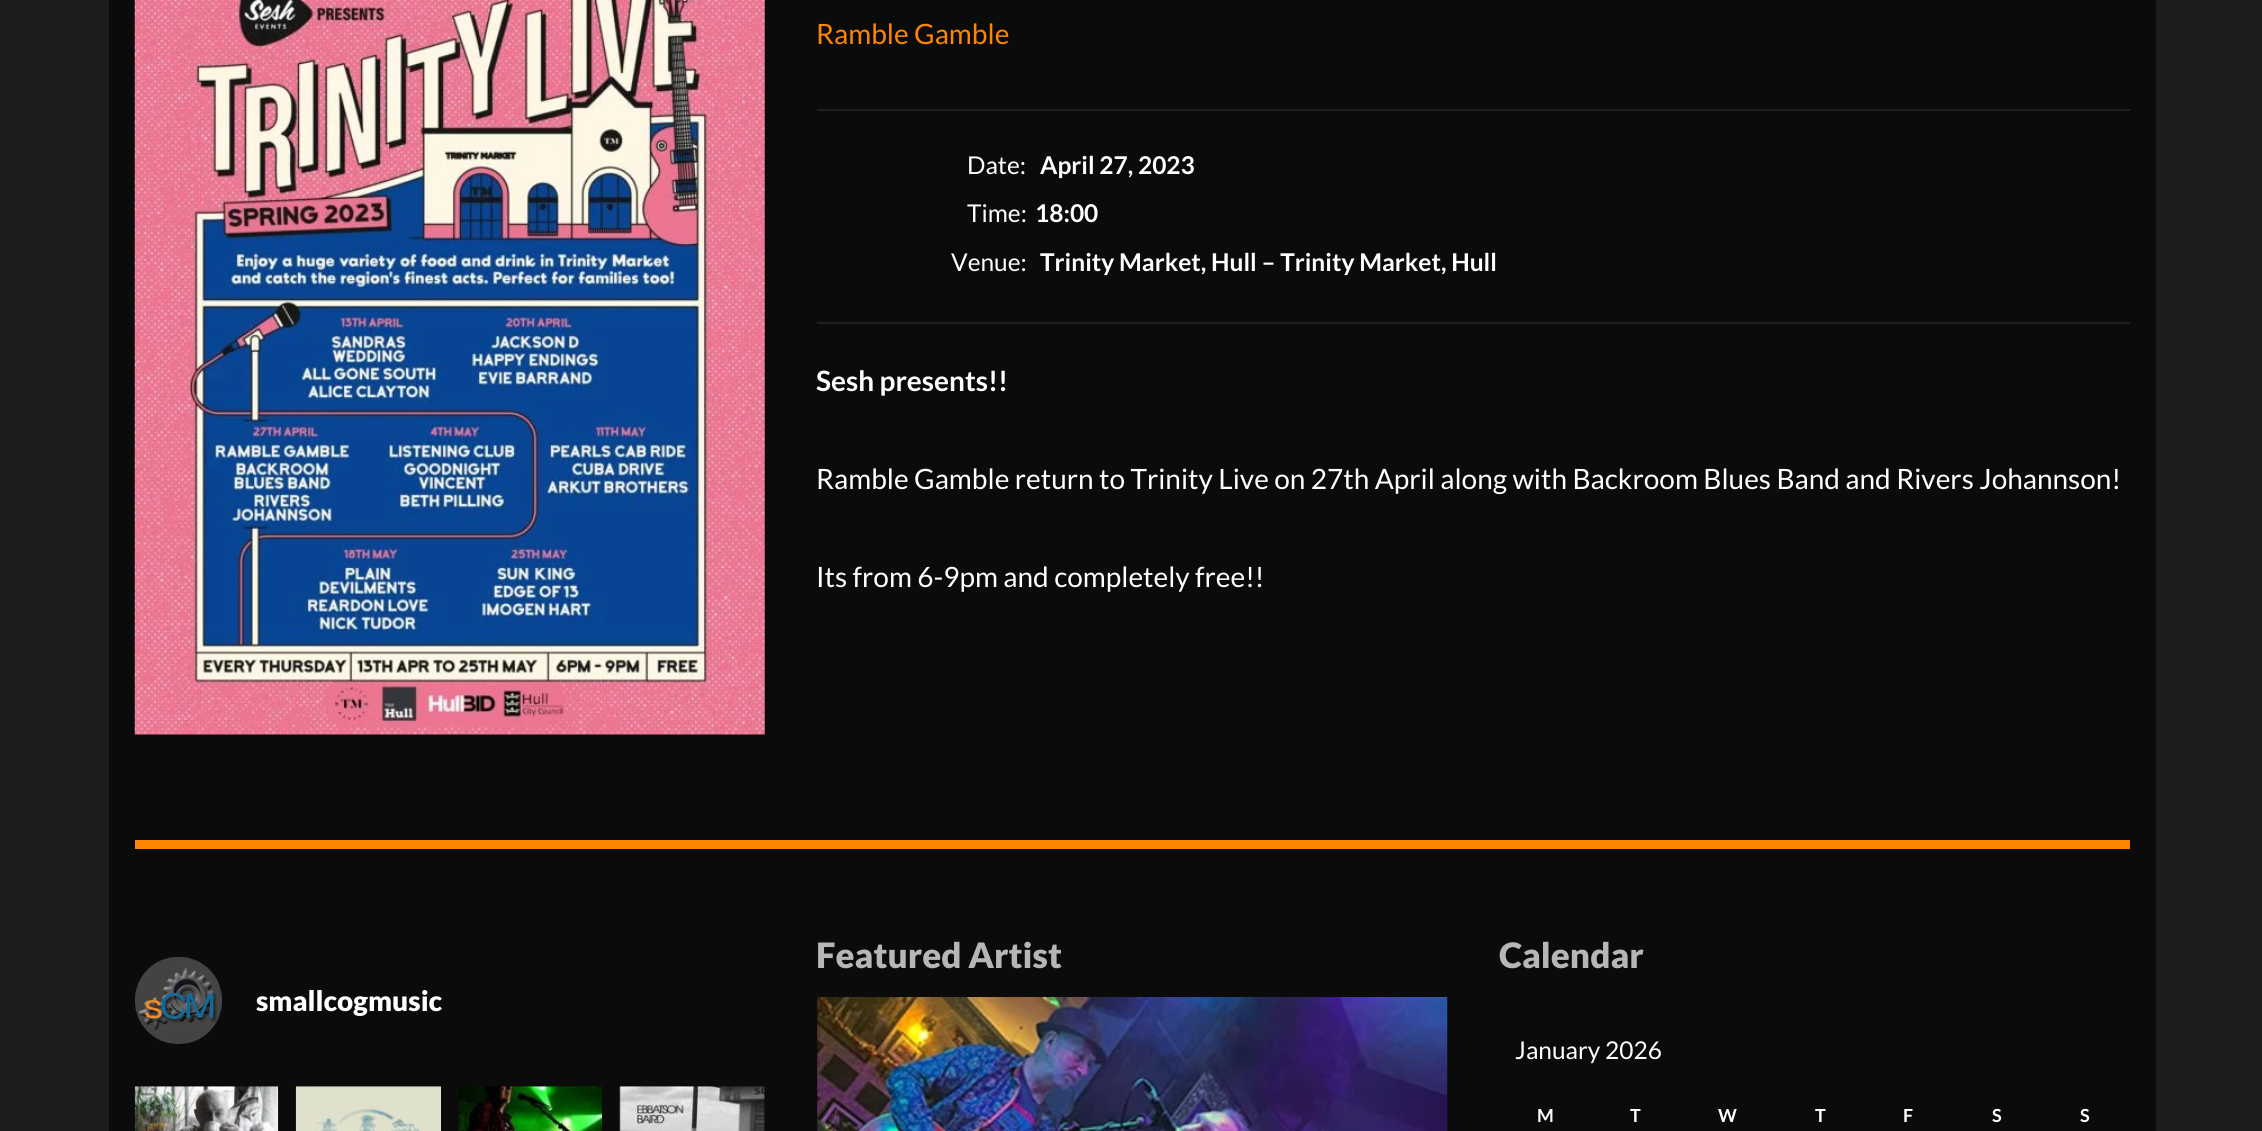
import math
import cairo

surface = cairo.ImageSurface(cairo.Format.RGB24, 2262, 1131)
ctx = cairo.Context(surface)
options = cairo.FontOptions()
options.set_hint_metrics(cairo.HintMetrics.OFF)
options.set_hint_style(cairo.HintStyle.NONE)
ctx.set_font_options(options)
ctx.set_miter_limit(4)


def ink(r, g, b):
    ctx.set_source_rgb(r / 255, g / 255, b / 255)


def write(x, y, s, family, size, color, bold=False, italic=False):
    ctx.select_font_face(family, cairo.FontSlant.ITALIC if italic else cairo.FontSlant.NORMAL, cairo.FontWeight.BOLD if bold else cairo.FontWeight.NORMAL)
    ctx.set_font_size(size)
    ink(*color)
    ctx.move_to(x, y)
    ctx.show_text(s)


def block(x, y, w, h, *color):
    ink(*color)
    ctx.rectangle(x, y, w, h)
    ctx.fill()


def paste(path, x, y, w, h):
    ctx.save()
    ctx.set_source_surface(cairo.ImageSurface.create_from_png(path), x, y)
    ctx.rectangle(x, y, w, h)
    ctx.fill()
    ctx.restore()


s1 = dict(family="Lato", size=28, color=(254, 133, 0))
s2 = dict(family="Lato", size=24.5, color=(255, 255, 255))
s3 = dict(family="Lato", size=24.5, color=(255, 255, 255), bold=True)
s4 = dict(family="Lato", size=28, color=(255, 255, 255), bold=True)
s5 = dict(family="Lato", size=28, color=(255, 255, 255))
s6 = dict(family="Lato Black", size=28, color=(255, 255, 255))
s7 = dict(family="Lato Black", size=35, color=(182, 182, 182))
s8 = dict(family="Lato", size=18, color=(255, 255, 255), bold=True)

ink(29, 29, 29)
ctx.paint()
block(109, 0, 2047, 1131, 11, 11, 11)
paste("pic1.png", 134, 0, 631, 735)
write(816, 44, "Ramble Gamble", **s1)
block(817, 109, 1313, 2, 32, 32, 32)
block(817, 322, 1313, 2, 32, 32, 32)
write(967, 174, "Date:", **s2)
write(1040, 174, "April 27, 2023", **s3)
write(967, 222, "Time:", **s2)
write(1035, 222, "18:00", **s3)
write(951, 271, "Venue:", **s2)
write(1040, 271, "Trinity Market, Hull – Trinity Market, Hull", **s3)
write(816, 391, "Sesh presents!!", **s4)
write(816, 489, "Ramble Gamble return to Trinity Live on 27th April along with Backroom Blues Band and Rivers Johannson!", **s5)
write(816, 587, "Its from 6-9pm and completely free!!", **s5)
block(135, 840, 1995, 9, 254, 133, 0)
paste("pic2.png", 135, 957, 87, 87)
write(256, 1011, "smallcogmusic", **s6)
paste("pic3.png", 134, 1086, 145, 45)
paste("pic4.png", 295, 1086, 146, 45)
paste("pic5.png", 458, 1086, 144, 45)
paste("pic6.png", 619, 1086, 146, 45)
write(816, 968, "Featured Artist", **s7)
paste("pic7.png", 817, 997, 631, 134)
write(1499, 968, "Calendar", **s7)
write(1515, 1059, "January 2026", **s2)
write(1537, 1122, "M", **s8)
write(1630, 1122, "T", **s8)
write(1718, 1122, "W", **s8)
write(1815, 1122, "T", **s8)
write(1903, 1122, "F", **s8)
write(1992, 1122, "S", **s8)
write(2080, 1122, "S", **s8)
surface.write_to_png("screenshot.png")
